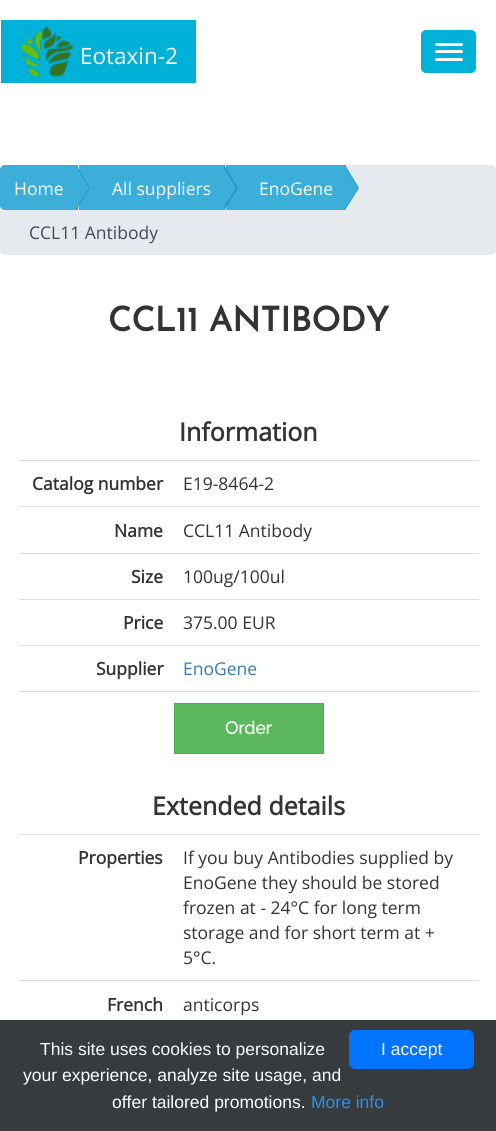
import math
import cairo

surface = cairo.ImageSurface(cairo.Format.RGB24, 496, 1131)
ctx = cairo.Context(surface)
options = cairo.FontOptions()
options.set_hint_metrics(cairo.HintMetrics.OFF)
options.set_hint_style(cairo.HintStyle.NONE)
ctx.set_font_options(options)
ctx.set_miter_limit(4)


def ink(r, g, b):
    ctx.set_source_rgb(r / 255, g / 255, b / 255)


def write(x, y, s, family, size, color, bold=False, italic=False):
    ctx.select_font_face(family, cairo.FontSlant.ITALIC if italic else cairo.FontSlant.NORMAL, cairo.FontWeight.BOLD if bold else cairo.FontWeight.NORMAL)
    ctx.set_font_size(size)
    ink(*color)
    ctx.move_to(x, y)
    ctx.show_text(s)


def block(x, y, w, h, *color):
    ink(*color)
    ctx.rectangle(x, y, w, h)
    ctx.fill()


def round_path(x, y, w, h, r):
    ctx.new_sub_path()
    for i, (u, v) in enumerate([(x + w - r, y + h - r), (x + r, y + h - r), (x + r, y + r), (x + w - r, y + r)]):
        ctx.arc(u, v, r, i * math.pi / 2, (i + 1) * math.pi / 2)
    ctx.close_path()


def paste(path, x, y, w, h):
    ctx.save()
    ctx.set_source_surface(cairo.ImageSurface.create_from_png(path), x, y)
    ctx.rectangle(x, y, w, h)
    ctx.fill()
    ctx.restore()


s1 = dict(family="Open Sans", size=22.5, color=(255, 255, 255))
s2 = dict(family="Open Sans", size=17.5, color=(255, 255, 255))
s3 = dict(family="Open Sans", size=17.5, color=(67, 74, 84))
s4 = dict(family="Josefin Sans", size=33.75, color=(51, 51, 51), bold=True)
s5 = dict(family="Open Sans", size=25, color=(51, 51, 51), bold=True)
s6 = dict(family="Open Sans", size=17.5, color=(51, 51, 51), bold=True)
s7 = dict(family="Open Sans", size=17.5, color=(51, 51, 51))
s8 = dict(family="Open Sans", size=17.5, color=(51, 122, 183))
s9 = dict(family="Raleway", size=17.5, color=(255, 255, 255), bold=True)
s10 = dict(family="Liberation Sans", size=17.5, color=(255, 255, 255))
s11 = dict(family="Liberation Sans", size=17.5, color=(41, 144, 234))

ink(255, 255, 255)
ctx.paint()
block(1, 20, 195, 63, 1, 177, 215)
paste("pic1.png", 20, 26, 54, 51)
write(80, 64, "Eotaxin-2", **s1)
ink(1, 177, 215)
round_path(421, 30, 55, 43, 5)
ctx.fill()
ink(255, 255, 255)
round_path(435, 43, 28, 3, 1.5)
ctx.fill()
round_path(435, 50, 28, 3, 1.5)
ctx.fill()
round_path(435, 58, 28, 3, 1.5)
ctx.fill()
ink(230, 233, 237)
round_path(0, 165, 496, 90, 5)
ctx.fill()
ink(59, 175, 218)
ctx.new_path()
ctx.move_to(5, 165.5)
ctx.line_to(77.5, 165.5)
ctx.line_to(77.5, 209.5)
ctx.line_to(5, 209.5)
ctx.curve_to(2.5, 209.5, 0.5, 207.5, 0.5, 205)
ctx.line_to(0.5, 170)
ctx.curve_to(0.5, 167.5, 2.5, 165.5, 5, 165.5)
ctx.close_path()
ctx.fill_preserve()
ctx.set_line_width(1)
ctx.stroke()
block(79, 165, 146, 45, 59, 175, 218)
ink(36, 148, 190)
ctx.new_path()
ctx.move_to(76, 210)
ctx.line_to(76, 165)
ctx.line_to(90, 188)
ctx.close_path()
ctx.fill()
ink(59, 175, 218)
ctx.new_path()
ctx.move_to(75, 210)
ctx.line_to(75, 165)
ctx.line_to(89, 188)
ctx.close_path()
ctx.fill()
write(14, 195, "Home", **s2)
block(226, 165, 120, 45, 59, 175, 218)
ink(36, 148, 190)
ctx.new_path()
ctx.move_to(224, 210)
ctx.line_to(224, 165)
ctx.line_to(238, 188)
ctx.close_path()
ctx.fill()
ink(59, 175, 218)
ctx.new_path()
ctx.move_to(222, 210)
ctx.line_to(222, 165)
ctx.line_to(236, 188)
ctx.close_path()
ctx.fill()
write(112, 195, "All suppliers", **s2)
ink(36, 148, 190)
ctx.new_path()
ctx.move_to(345, 210)
ctx.line_to(345, 165)
ctx.line_to(359, 188)
ctx.close_path()
ctx.fill()
ink(59, 175, 218)
ctx.new_path()
ctx.move_to(344, 210)
ctx.line_to(344, 165)
ctx.line_to(358, 188)
ctx.close_path()
ctx.fill()
write(259, 195, "EnoGene", **s2)
write(29, 239, "CCL11 Antibody", **s3)
write(108, 331, "CCL11 ANTIBODY", **s4)
write(179, 441, "Information", **s5)
write(32, 490, "Catalog number", **s6)
block(19, 460, 460, 1, 221, 221, 221)
write(183, 490, "E19-8464-2", **s7)
write(114, 537, "Name", **s6)
block(19, 506, 460, 1, 221, 221, 221)
write(183, 537, "CCL11 Antibody", **s7)
write(131, 583, "Size", **s6)
block(19, 553, 460, 1, 221, 221, 221)
write(183, 583, "100ug/100ul", **s7)
write(123, 629, "Price", **s6)
block(19, 599, 460, 1, 221, 221, 221)
write(183, 629, "375.00 EUR", **s7)
write(96, 675, "Supplier", **s6)
block(19, 645, 460, 1, 221, 221, 221)
write(183, 675, "EnoGene", **s8)
block(19, 691, 460, 1, 221, 221, 221)
ink(92, 184, 92)
ctx.rectangle(174.5, 703.5, 149, 50)
ctx.fill_preserve()
ink(76, 174, 76)
ctx.stroke()
write(225, 734, "Order", **s9)
write(152, 815, "Extended details", **s5)
write(78, 864, "Properties", **s6)
block(19, 834, 460, 1, 221, 221, 221)
write(183, 864, "If you buy Antibodies supplied by", **s7)
write(183, 889, "EnoGene they should be stored", **s7)
write(183, 914, "frozen at - 24°C for long term", **s7)
write(183, 939, "storage and for short term at +", **s7)
write(183, 964, "5°C.", **s7)
write(107, 1011, "French", **s6)
block(19, 980, 460, 1, 221, 221, 221)
write(183, 1011, "anticorps", **s7)
block(0, 1020, 496, 111, 54, 59, 62)
write(40, 1055, "This site uses cookies to personalize", **s10)
write(23, 1081, "your experience, analyze site usage, and", **s10)
write(112, 1108, "offer tailored promotions.", **s10)
write(311, 1108, "More info", **s11)
ink(0, 115, 255)
round_path(349, 1030, 125, 39, 6)
ctx.fill()
write(381, 1055, "I accept", **s10)
surface.write_to_png("screenshot.png")
